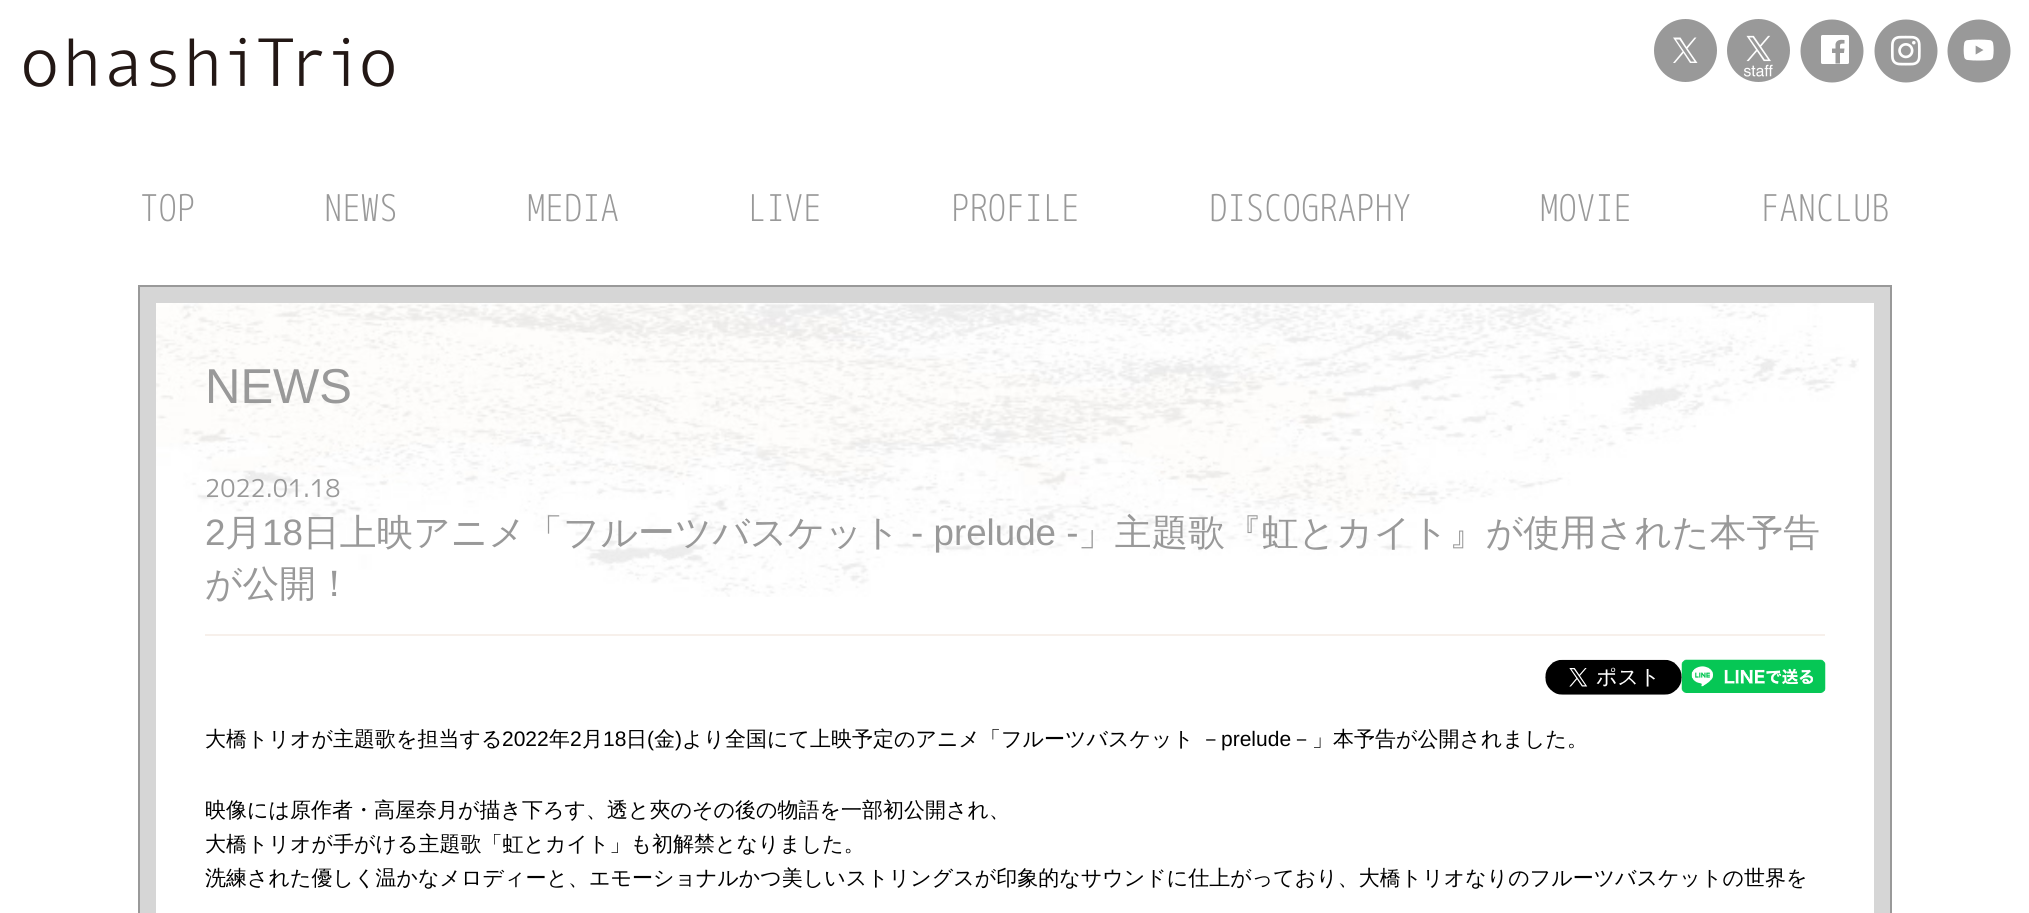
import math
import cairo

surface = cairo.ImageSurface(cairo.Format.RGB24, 2029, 913)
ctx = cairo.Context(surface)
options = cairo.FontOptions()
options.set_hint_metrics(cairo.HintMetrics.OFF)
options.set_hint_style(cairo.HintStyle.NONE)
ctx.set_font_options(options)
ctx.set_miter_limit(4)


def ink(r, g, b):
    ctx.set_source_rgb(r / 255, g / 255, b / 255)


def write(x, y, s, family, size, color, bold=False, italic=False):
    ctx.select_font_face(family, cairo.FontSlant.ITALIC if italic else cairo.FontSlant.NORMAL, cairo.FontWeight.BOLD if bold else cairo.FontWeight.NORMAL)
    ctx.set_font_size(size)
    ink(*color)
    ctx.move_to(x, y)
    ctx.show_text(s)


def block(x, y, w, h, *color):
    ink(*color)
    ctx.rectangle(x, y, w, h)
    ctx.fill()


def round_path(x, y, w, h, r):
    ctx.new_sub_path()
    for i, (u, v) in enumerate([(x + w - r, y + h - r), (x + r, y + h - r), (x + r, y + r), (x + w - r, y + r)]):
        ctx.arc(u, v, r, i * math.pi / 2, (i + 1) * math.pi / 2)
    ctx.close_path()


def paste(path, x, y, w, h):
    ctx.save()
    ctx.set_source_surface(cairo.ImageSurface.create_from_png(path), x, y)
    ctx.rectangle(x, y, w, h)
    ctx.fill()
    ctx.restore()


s1 = dict(family="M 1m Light", size=36.75, color=(153, 153, 153))
s2 = dict(family="Liberation Sans", size=49, color=(153, 153, 153))
s3 = dict(family="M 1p", size=24.5, color=(153, 153, 153))
s4 = dict(family="Liberation Sans", size=36.75, color=(153, 153, 153))
s5 = dict(family="WenQuanYi Zen Hei Medium", size=36.75, color=(153, 153, 153))
s6 = dict(family="WenQuanYi Zen Hei Medium", size=21, color=(0, 0, 0))
s7 = dict(family="Liberation Sans", size=21, color=(0, 0, 0))

ink(255, 255, 255)
ctx.paint()
paste("pic1.png", 24, 37, 370, 50)
ink(153, 153, 153)
ctx.arc(1685.5, 50.5, 31.5, 0, 2 * math.pi)
ctx.fill()
ink(255, 255, 255)
ctx.new_path()
ctx.move_to(1687.5, 48.5)
ctx.line_to(1696.5, 37.5)
ctx.line_to(1694.5, 37.5)
ctx.line_to(1686.5, 47)
ctx.line_to(1680.5, 37.5)
ctx.line_to(1673, 37.5)
ctx.line_to(1682.5, 51.5)
ctx.line_to(1673, 63)
ctx.line_to(1675, 63)
ctx.line_to(1683.5, 53)
ctx.line_to(1690, 63)
ctx.line_to(1697.5, 63)
ctx.close_path()
ctx.move_to(1684.5, 52)
ctx.line_to(1676, 39.5)
ctx.line_to(1679.5, 39.5)
ctx.line_to(1694.5, 61.5)
ctx.line_to(1691, 61.5)
ctx.close_path()
ctx.fill()
paste("pic2.png", 1727, 19, 63, 63)
ink(153, 153, 153)
ctx.arc(1832, 51, 31.5, 0, 2 * math.pi)
ctx.fill()
ink(255, 255, 255)
round_path(1821, 35, 28, 29, 1.5)
ctx.fill()
ink(153, 153, 153)
ctx.new_path()
ctx.move_to(1840, 63.5)
ctx.line_to(1840, 53)
ctx.line_to(1844, 53)
ctx.line_to(1844.5, 48.5)
ctx.line_to(1840, 48.5)
ctx.curve_to(1840, 44, 1839.5, 43.5, 1844.5, 43.5)
ctx.line_to(1844.5, 40)
ctx.curve_to(1841, 39.5, 1836.5, 39.5, 1835.5, 44)
ctx.line_to(1835.5, 48.5)
ctx.line_to(1832, 48.5)
ctx.line_to(1832, 53)
ctx.line_to(1835.5, 53)
ctx.line_to(1835.5, 63.5)
ctx.close_path()
ctx.fill()
paste("pic3.png", 1874, 19, 64, 64)
paste("pic4.png", 1947, 19, 64, 64)
write(140, 221, "TOP", **s1)
write(324, 221, "NEWS", **s1)
write(527, 221, "MEDIA", **s1)
write(748, 221, "LIVE", **s1)
write(951, 221, "PROFILE", **s1)
write(1209, 221, "DISCOGRAPHY", **s1)
write(1540, 221, "MOVIE", **s1)
write(1761, 221, "FANCLUB", **s1)
ctx.rectangle(139, 286, 1752, 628)
ctx.stroke()
paste("pic5.png", 156, 303, 1703, 294)
ctx.rectangle(148, 295, 1734, 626)
ink(214, 214, 214)
ctx.set_line_width(16)
ctx.stroke()
write(205, 403, "NEWS", **s2)
write(205, 497, "2022.01.18", **s3)
block(205, 634, 1620, 2, 247, 240, 235)
write(205, 545, "2", **s4)
write(225, 545, "月", **s5)
write(262, 545, "18", **s4)
write(303, 545, "日上映アニメ「フルーツバスケット", **s5)
write(911, 545, "- prelude -", **s4)
write(1078, 545, "」主題歌『虹とカイト』が使用された本予告", **s5)
write(205, 596, "が公開！", **s5)
paste("pic7.png", 1681, 659, 145, 34)
paste("pic6.png", 1545, 659, 137, 36)
write(205, 746, "大橋トリオが主題歌を担当する", **s6)
write(502, 746, "2022", **s7)
write(549, 746, "年", **s6)
write(570, 746, "2", **s7)
write(582, 746, "月", **s6)
write(603, 746, "18", **s7)
write(626, 746, "日", **s6)
write(647, 746, "(", **s7)
write(654, 746, "金", **s6)
write(675, 746, ")", **s7)
write(682, 746, "より全国にて上映予定のアニメ「フルーツバスケット －", **s6)
write(1221, 746, "prelude", **s7)
write(1291, 746, "－」本予告が公開されました。", **s6)
write(205, 817, "映像には原作者・高屋奈月が描き下ろす、透と夾のその後の物語を一部初公開され、", **s6)
write(205, 851, "大橋トリオが手がける主題歌「虹とカイト」も初解禁となりました。", **s6)
write(205, 885, "洗練された優しく温かなメロディーと、エモーショナルかつ美しいストリングスが印象的なサウンドに仕上がっており、大橋トリオなりのフルーツバスケットの世界を", **s6)
surface.write_to_png("screenshot.png")
